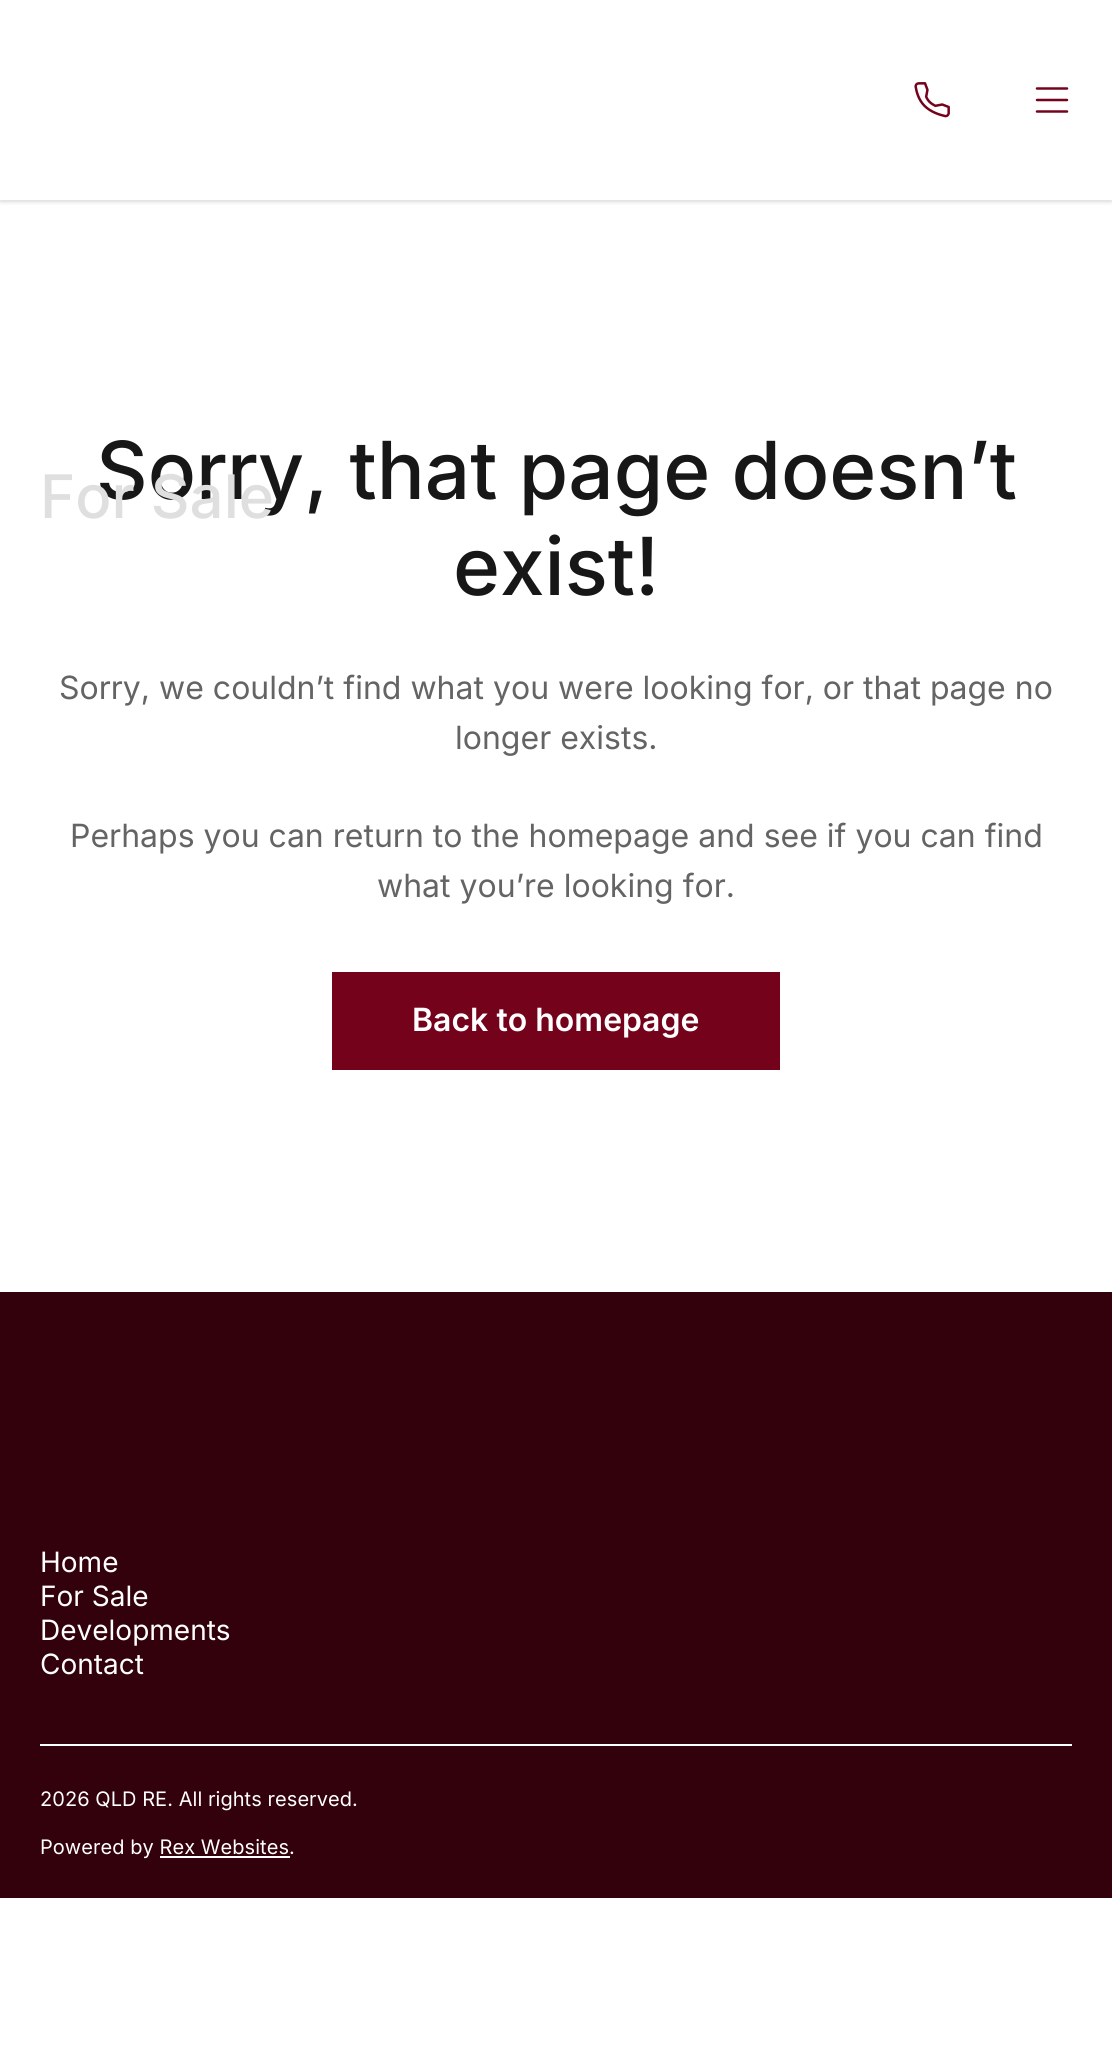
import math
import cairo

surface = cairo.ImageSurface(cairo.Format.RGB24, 1112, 2056)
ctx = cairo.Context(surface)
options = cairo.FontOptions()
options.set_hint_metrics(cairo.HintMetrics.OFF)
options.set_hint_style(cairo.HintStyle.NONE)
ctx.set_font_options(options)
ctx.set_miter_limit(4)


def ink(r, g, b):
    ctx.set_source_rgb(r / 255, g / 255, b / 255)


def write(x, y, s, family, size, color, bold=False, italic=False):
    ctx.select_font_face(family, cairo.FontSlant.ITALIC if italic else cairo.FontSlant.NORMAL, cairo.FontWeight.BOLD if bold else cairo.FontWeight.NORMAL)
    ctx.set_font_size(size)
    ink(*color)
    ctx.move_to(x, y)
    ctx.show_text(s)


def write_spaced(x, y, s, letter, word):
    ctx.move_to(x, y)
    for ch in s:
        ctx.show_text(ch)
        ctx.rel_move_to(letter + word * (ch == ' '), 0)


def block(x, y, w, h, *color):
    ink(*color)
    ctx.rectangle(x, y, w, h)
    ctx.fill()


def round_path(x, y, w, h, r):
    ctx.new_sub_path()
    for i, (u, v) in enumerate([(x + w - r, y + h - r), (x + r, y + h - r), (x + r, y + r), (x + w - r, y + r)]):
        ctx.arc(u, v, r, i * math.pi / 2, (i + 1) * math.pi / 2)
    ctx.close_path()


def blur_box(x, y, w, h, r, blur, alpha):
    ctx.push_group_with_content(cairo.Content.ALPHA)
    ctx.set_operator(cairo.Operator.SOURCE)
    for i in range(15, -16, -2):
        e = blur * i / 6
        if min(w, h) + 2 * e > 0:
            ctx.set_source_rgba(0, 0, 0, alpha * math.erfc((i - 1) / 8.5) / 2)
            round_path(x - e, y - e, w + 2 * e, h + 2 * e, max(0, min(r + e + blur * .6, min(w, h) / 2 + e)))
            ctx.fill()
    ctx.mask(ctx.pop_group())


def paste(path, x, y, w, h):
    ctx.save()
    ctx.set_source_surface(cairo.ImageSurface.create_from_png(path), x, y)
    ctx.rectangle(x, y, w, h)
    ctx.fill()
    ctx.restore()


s1 = dict(family="Inter Medium", size=80, color=(23, 23, 23))
s2 = dict(family="Inter", size=32, color=(100, 100, 100))
s3 = dict(family="Inter SemiBold", size=32, color=(255, 255, 255))
s4 = dict(family="Inter Medium", size=60, color=(223, 223, 223))
s5 = dict(family="Inter", size=28, color=(255, 255, 255))

ink(255, 255, 255)
ctx.paint()
write(96, 499, "Sorry, that page doesn’t", **s1)
write(453, 595, "exist!", **s1)
write(59, 699, "Sorry, we couldn’t find what you were looking for, or that page no", **s2)
write(455, 749, "longer exists.", **s2)
write(70, 847, "Perhaps you can return to the homepage and see if you can find", **s2)
write(377, 897, "what you’re looking for.", **s2)
block(332, 972, 448, 98, 116, 2, 26)
write(412, 1031, "Back to homepage", **s3)
ctx.save()
ctx.rectangle(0, 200, 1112, 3)
ctx.clip()
ink(0, 0, 0)
blur_box(0, 2, 1112, 200, 0, 2, 0.06)
ctx.restore()
ctx.save()
ctx.rectangle(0, 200, 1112, 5)
ctx.clip()
ink(0, 0, 0)
blur_box(0, 2, 1112, 200, 0, 3, 0.1)
ctx.restore()
paste("pic1.png", 914, 82, 36, 36)
ctx.new_path()
ctx.move_to(1037, 88.5)
ctx.line_to(1067, 88.5)
ctx.move_to(1037, 100)
ctx.line_to(1067, 100)
ctx.move_to(1037, 111.5)
ctx.line_to(1067, 111.5)
ink(116, 2, 26)
ctx.set_line_width(2.5)
ctx.set_line_cap(cairo.LineCap.ROUND)
ctx.set_line_join(cairo.LineJoin.ROUND)
ctx.stroke()
write(40, 518, "For Sale", **s4)
block(0, 1292, 1112, 606, 50, 1, 11)
write(40, 1572, "Home", **s5)
write(40, 1606, "For Sale", **s5)
write(40, 1640, "Developments", **s5)
write(40, 1674, "Contact", **s5)
block(40, 1744, 1032, 2, 255, 255, 255)
ctx.set_font_size(20)
write_spaced(40, 1806, "2026 QLD RE. All rights reserved.", 0.05, 0)
write_spaced(40, 1854, "Powered by Rex Websites.", 0.05, 0)
block(160, 1856, 130, 2, 255, 255, 255)
surface.write_to_png("screenshot.png")
